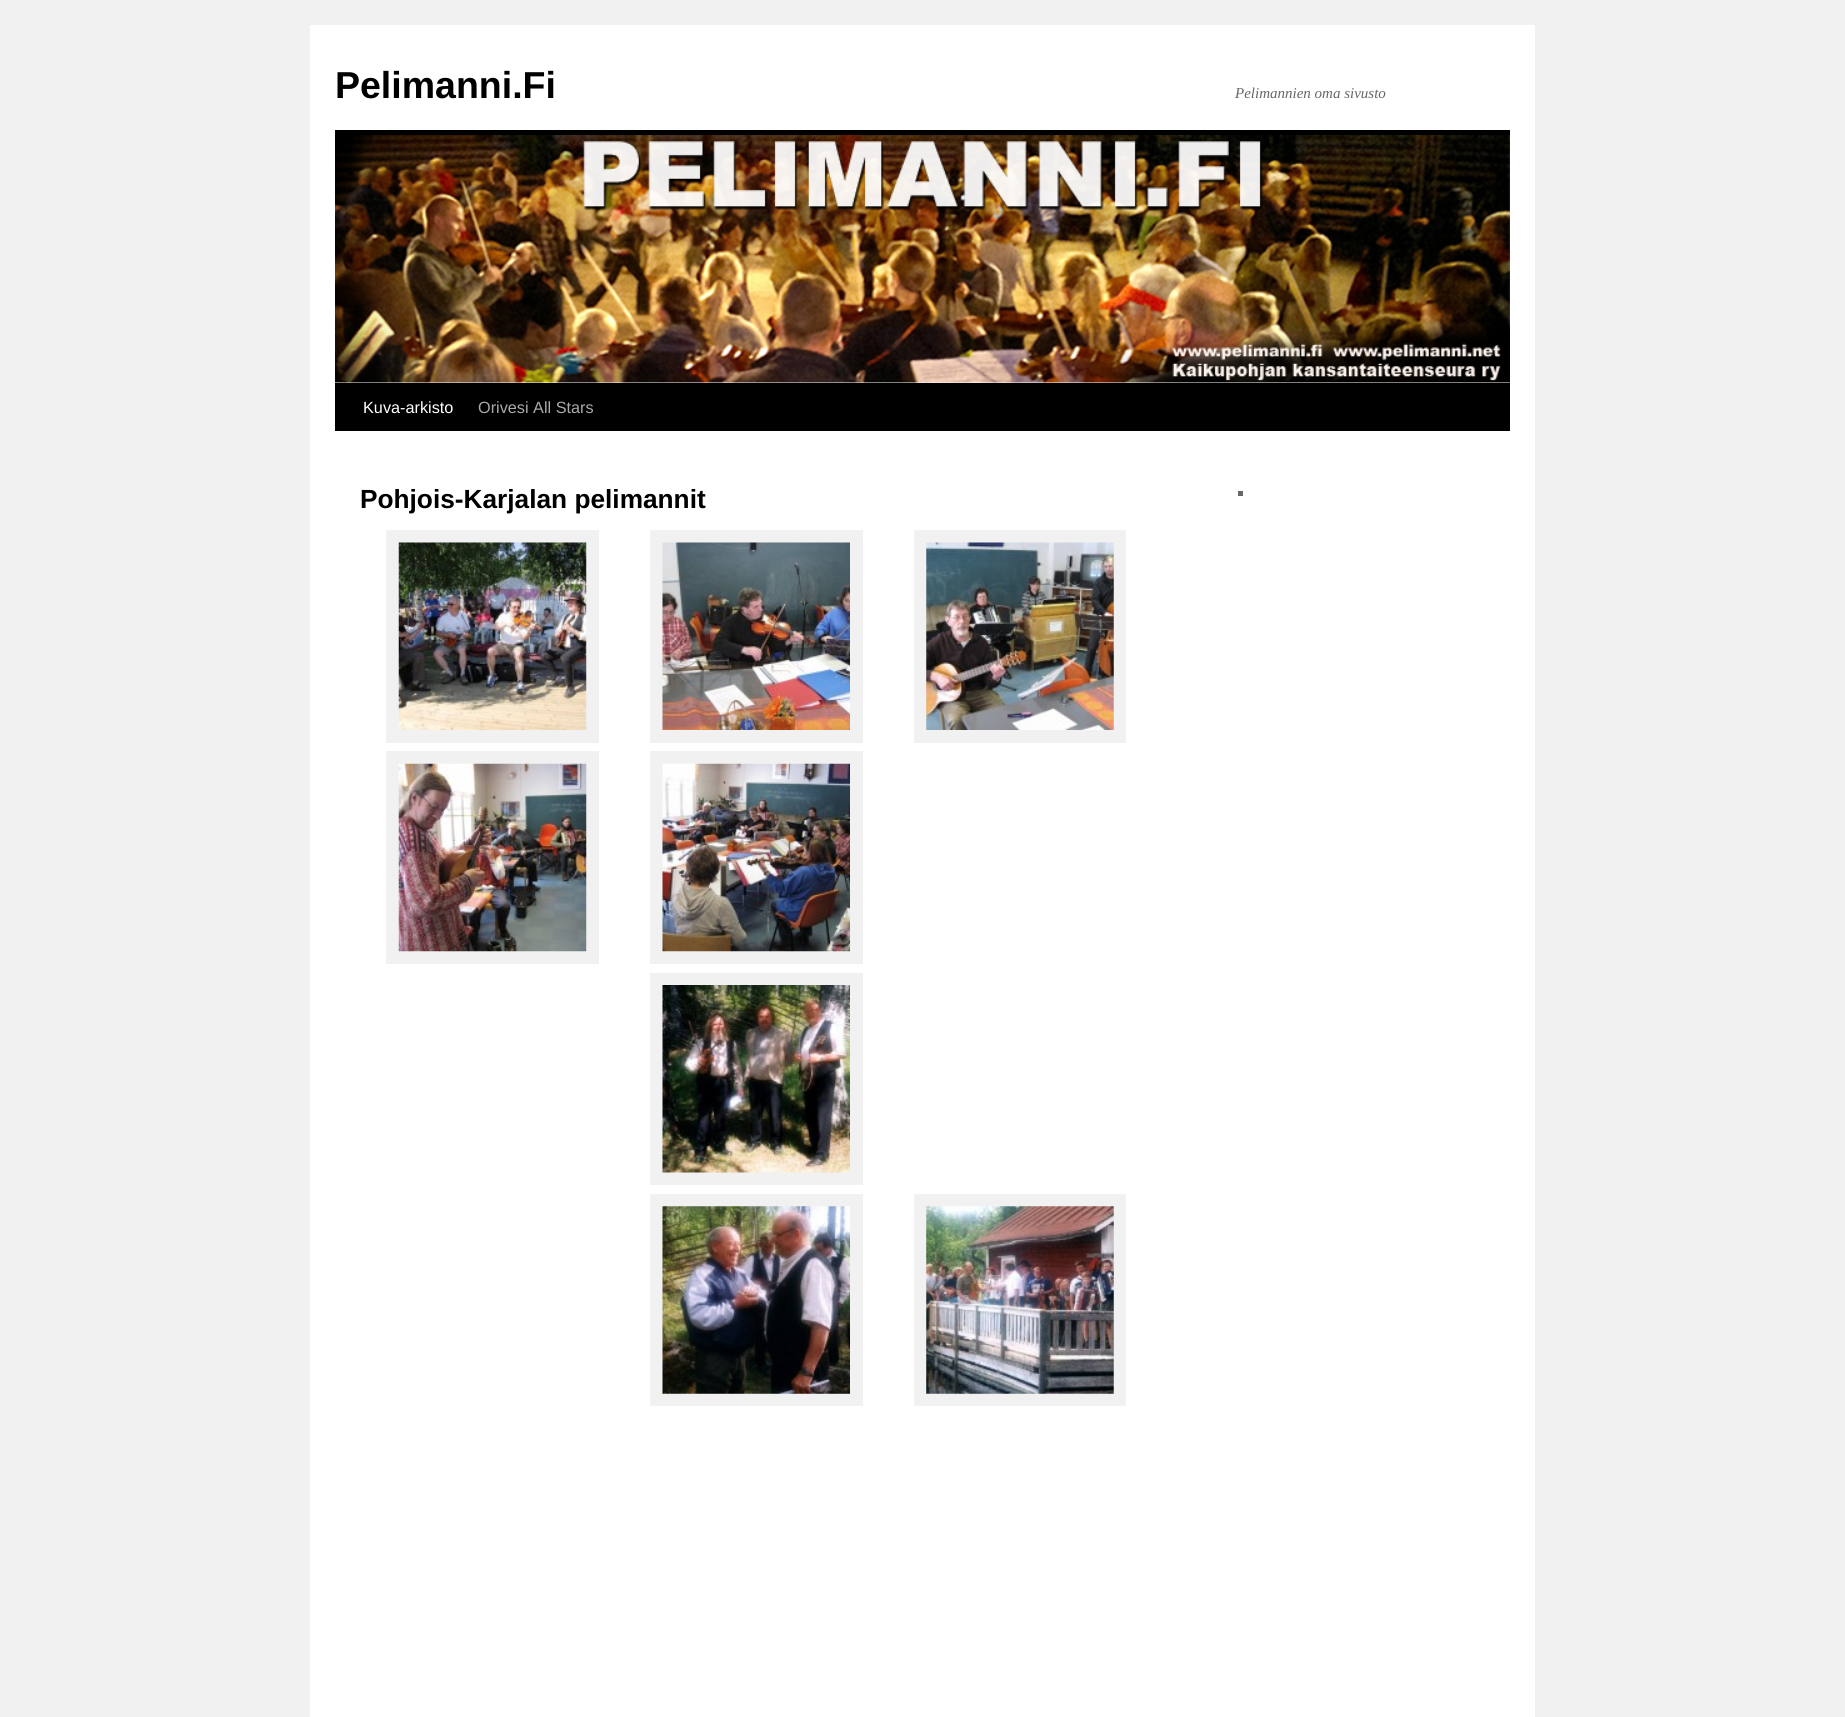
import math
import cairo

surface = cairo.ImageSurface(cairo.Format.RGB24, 1845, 1717)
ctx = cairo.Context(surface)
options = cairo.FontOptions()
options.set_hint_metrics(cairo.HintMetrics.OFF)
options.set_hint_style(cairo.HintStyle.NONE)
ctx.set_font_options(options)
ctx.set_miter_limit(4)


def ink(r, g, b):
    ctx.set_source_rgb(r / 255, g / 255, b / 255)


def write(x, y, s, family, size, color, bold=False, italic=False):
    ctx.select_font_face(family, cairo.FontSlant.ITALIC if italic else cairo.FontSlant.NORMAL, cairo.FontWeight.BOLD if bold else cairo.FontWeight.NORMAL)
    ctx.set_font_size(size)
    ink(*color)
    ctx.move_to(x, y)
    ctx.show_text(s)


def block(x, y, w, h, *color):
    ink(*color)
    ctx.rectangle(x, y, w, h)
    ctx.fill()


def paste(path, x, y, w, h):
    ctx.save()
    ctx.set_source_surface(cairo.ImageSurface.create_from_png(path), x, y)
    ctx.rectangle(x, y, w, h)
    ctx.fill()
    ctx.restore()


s1 = dict(family="Liberation Sans", size=37.5, color=(0, 0, 0), bold=True)
s2 = dict(family="Liberation Serif", size=15, color=(102, 102, 102), italic=True)
s3 = dict(family="Liberation Sans", size=16.25, color=(255, 255, 255))
s4 = dict(family="Liberation Sans", size=16.25, color=(170, 170, 170))
s5 = dict(family="Liberation Sans", size=26.25, color=(0, 0, 0), bold=True)

ink(241, 241, 241)
ctx.paint()
block(310, 25, 1225, 1692, 255, 255, 255)
write(335, 98, "Pelimanni.Fi", **s1)
write(1235, 98, "Pelimannien oma sivusto", **s2)
block(335, 130, 1175, 5, 0, 0, 0)
block(335, 383, 1175, 48, 0, 0, 0)
paste("pic1.png", 335, 135, 1175, 248)
write(363, 413, "Kuva-arkisto", **s3)
write(478, 413, "Orivesi All Stars", **s4)
write(360, 508, "Pohjois-Karjalan pelimannit", **s5)
ctx.rectangle(392.5, 536.5, 200, 200)
ink(241, 241, 241)
ctx.set_line_width(13)
ctx.stroke()
paste("pic2.png", 398, 542, 189, 188)
ctx.rectangle(656.5, 536.5, 200, 200)
ctx.stroke()
paste("pic3.png", 662, 542, 188, 188)
ctx.rectangle(920.5, 536.5, 199, 200)
ctx.stroke()
paste("pic4.png", 926, 542, 188, 188)
ctx.rectangle(392.5, 757.5, 200, 200)
ctx.stroke()
paste("pic5.png", 398, 763, 189, 189)
ctx.rectangle(656.5, 757.5, 200, 200)
ctx.stroke()
paste("pic6.png", 662, 763, 188, 189)
ctx.rectangle(656.5, 979.5, 200, 199)
ctx.stroke()
paste("pic7.png", 662, 985, 188, 188)
ctx.rectangle(656.5, 1200.5, 200, 199)
ctx.stroke()
paste("pic8.png", 662, 1206, 188, 188)
ctx.rectangle(920.5, 1200.5, 199, 199)
ctx.stroke()
paste("pic9.png", 926, 1206, 188, 188)
block(1238, 491, 5, 5, 102, 102, 102)
surface.write_to_png("screenshot.png")
